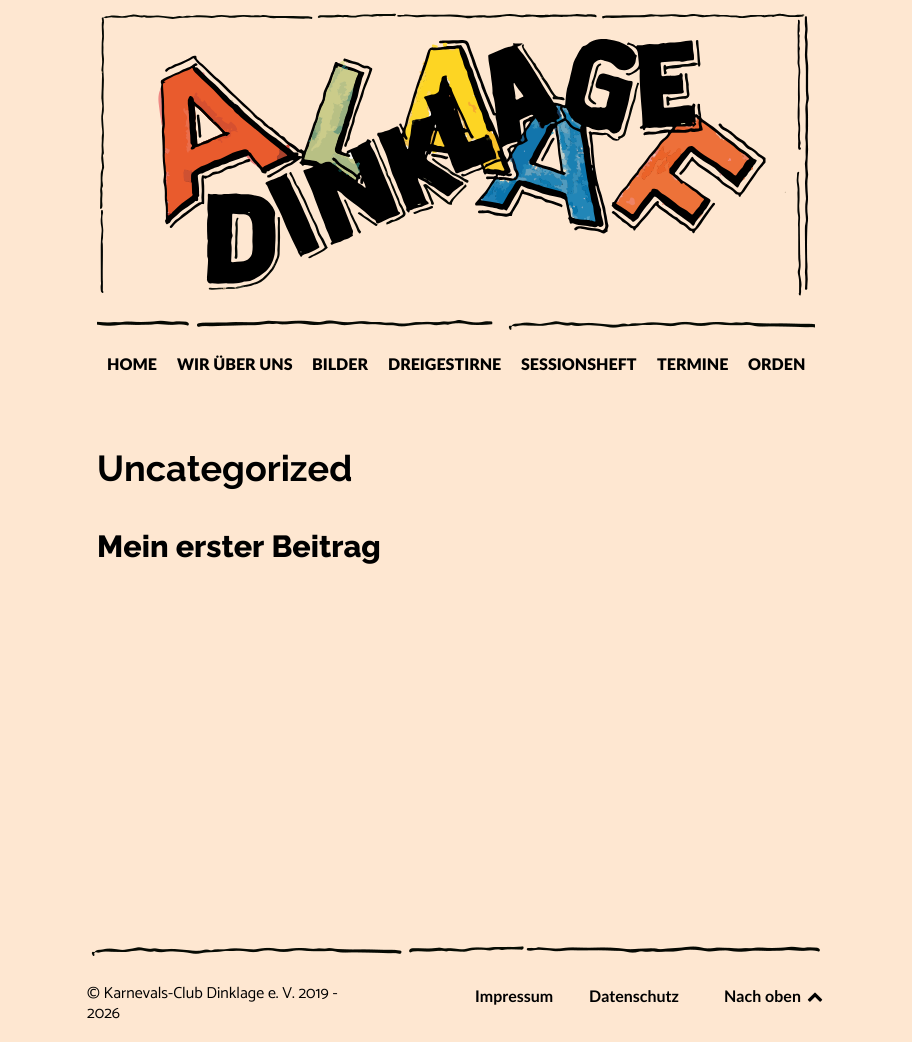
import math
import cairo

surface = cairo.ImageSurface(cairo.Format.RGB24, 912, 1042)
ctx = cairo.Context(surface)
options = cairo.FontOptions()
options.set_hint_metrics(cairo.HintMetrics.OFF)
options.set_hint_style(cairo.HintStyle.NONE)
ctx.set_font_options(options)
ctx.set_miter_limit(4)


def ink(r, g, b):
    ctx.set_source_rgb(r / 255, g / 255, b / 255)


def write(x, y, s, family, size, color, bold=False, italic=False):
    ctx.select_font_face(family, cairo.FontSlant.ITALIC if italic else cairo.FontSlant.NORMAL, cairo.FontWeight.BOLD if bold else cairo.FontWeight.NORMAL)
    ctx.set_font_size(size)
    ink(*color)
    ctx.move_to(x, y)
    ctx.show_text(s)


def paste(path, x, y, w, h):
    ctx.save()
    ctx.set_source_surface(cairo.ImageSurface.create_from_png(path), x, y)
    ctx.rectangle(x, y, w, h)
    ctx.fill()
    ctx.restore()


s1 = dict(family="Lato ExtraBold", size=16, color=(0, 0, 0))
s2 = dict(family="Raleway", size=36, color=(0, 0, 0), bold=True)
s3 = dict(family="Raleway ExtraBold", size=30.5, color=(0, 0, 0))
s4 = dict(family="Catamaran", size=16, color=(0, 0, 0))
s5 = dict(family="Lato", size=16, color=(0, 0, 0), bold=True)

ink(254, 231, 209)
ctx.paint()
paste("pic1.png", 100, 13, 709, 283)
paste("pic2.png", 97, 320, 718, 10)
write(107, 370, "HOME", **s1)
write(177, 370, "WIR ÜBER UNS", **s1)
write(312, 370, "BILDER", **s1)
write(388, 370, "DREIGESTIRNE", **s1)
write(521, 370, "SESSIONSHEFT", **s1)
write(657, 370, "TERMINE", **s1)
write(748, 370, "ORDEN", **s1)
write(97, 481, "Uncategorized", **s2)
write(97, 557, "Mein erster Beitrag", **s3)
paste("pic3.png", 91, 946, 729, 10)
write(87, 998, "© Karnevals-Club Dinklage e. V. 2019 -", **s4)
write(87, 1018, "2026", **s4)
write(475, 1002, "Impressum", **s5)
write(589, 1002, "Datenschutz", **s5)
write(724, 1002, "Nach oben", **s5)
paste("pic4.png", 807, 992, 16, 10)
surface.write_to_png("screenshot.png")
